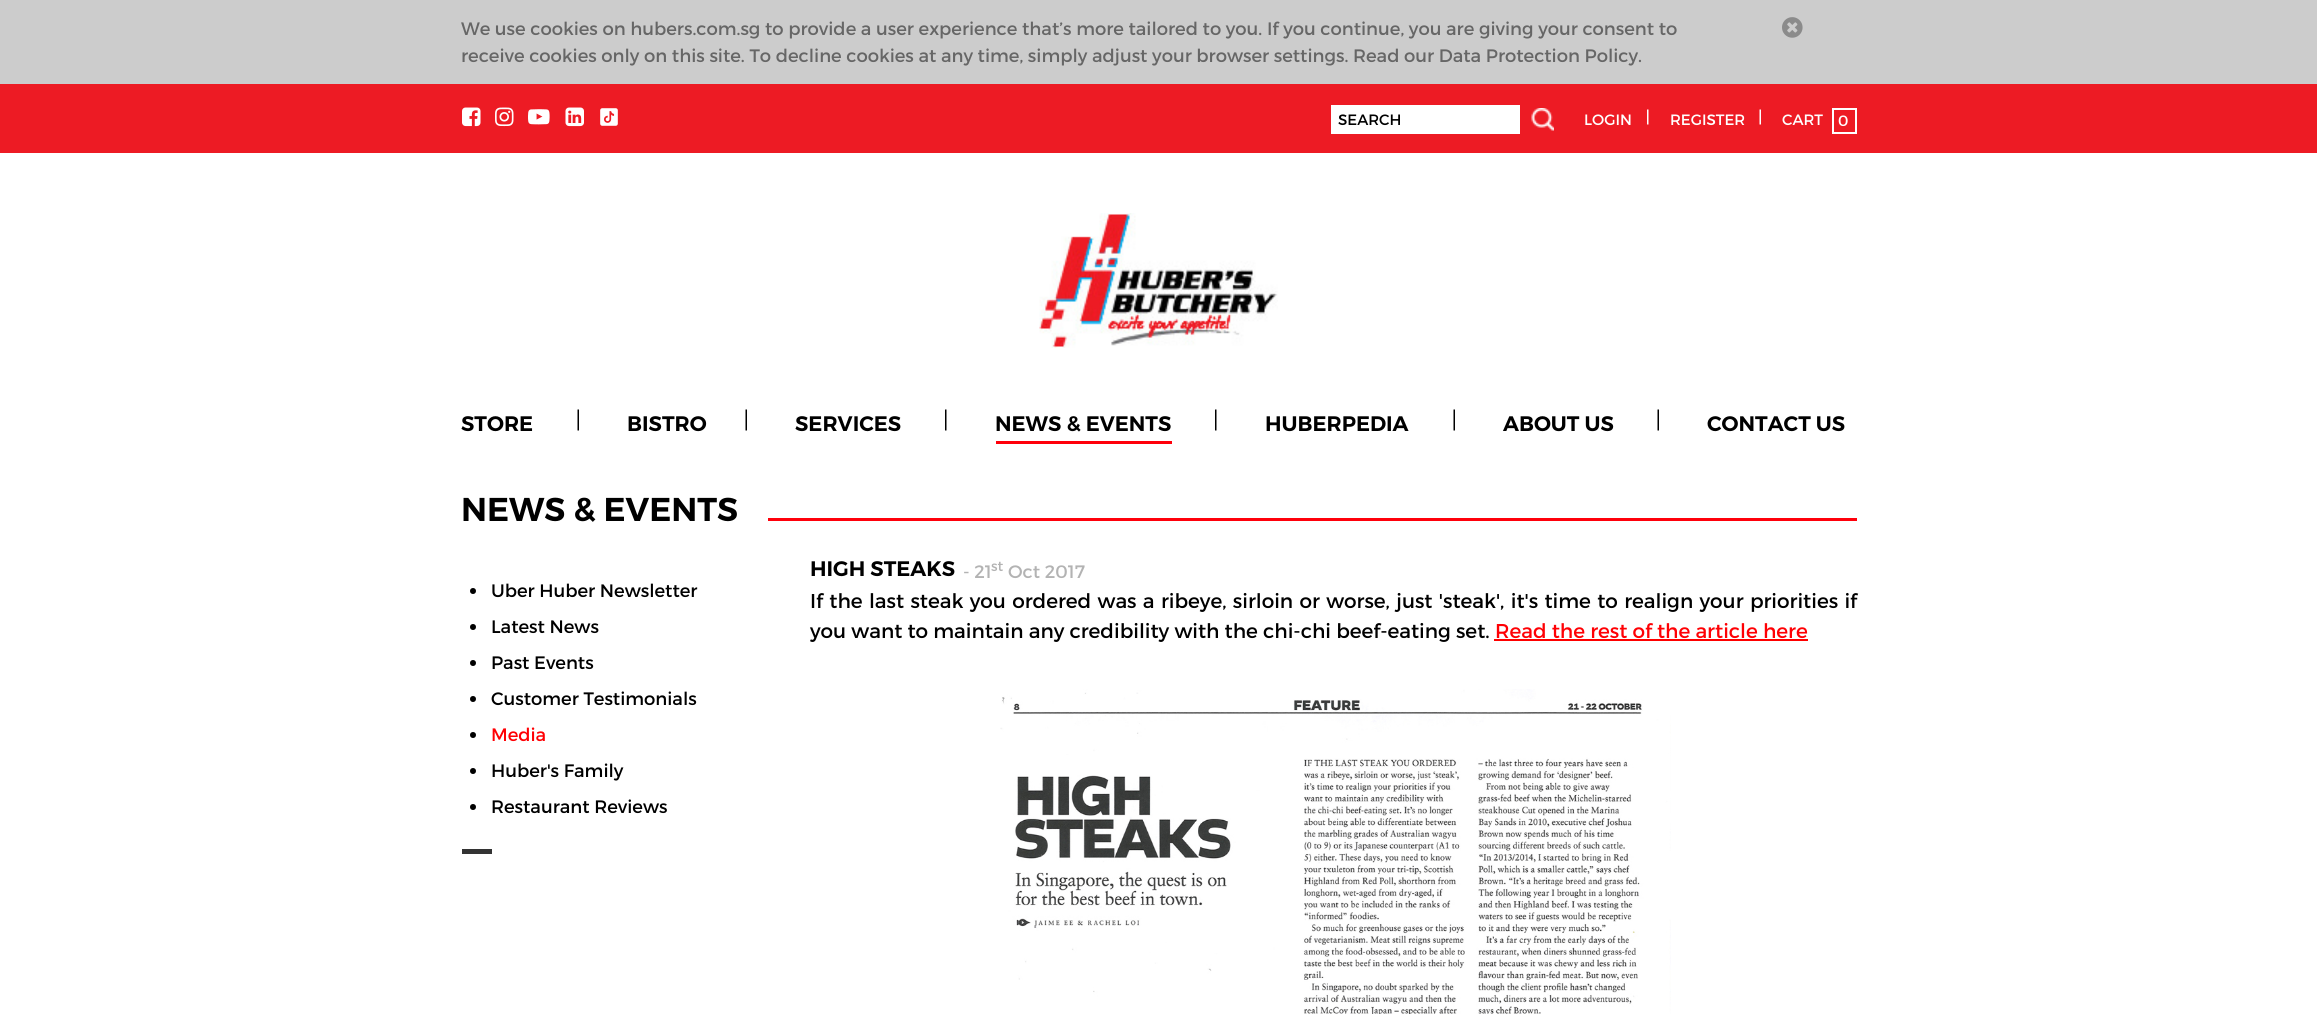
import math
import cairo

surface = cairo.ImageSurface(cairo.Format.RGB24, 2317, 1014)
ctx = cairo.Context(surface)
options = cairo.FontOptions()
options.set_hint_metrics(cairo.HintMetrics.OFF)
options.set_hint_style(cairo.HintStyle.NONE)
ctx.set_font_options(options)
ctx.set_miter_limit(4)


def ink(r, g, b):
    ctx.set_source_rgb(r / 255, g / 255, b / 255)


def write(x, y, s, family, size, color, bold=False, italic=False):
    ctx.select_font_face(family, cairo.FontSlant.ITALIC if italic else cairo.FontSlant.NORMAL, cairo.FontWeight.BOLD if bold else cairo.FontWeight.NORMAL)
    ctx.set_font_size(size)
    ink(*color)
    ctx.move_to(x, y)
    ctx.show_text(s)


def write_spaced(x, y, s, letter, word):
    ctx.move_to(x, y)
    for ch in s:
        ctx.show_text(ch)
        ctx.rel_move_to(letter + word * (ch == ' '), 0)


def block(x, y, w, h, *color):
    ink(*color)
    ctx.rectangle(x, y, w, h)
    ctx.fill()


def paste(path, x, y, w, h):
    ctx.save()
    ctx.set_source_surface(cairo.ImageSurface.create_from_png(path), x, y)
    ctx.rectangle(x, y, w, h)
    ctx.fill()
    ctx.restore()


s1 = dict(family="Montserrat", size=18, color=(102, 102, 102))
s2 = dict(family="Montserrat", size=15, color=(0, 0, 0))
s3 = dict(family="Montserrat", size=15, color=(255, 255, 255))
s4 = dict(family="Montserrat SemiBold", size=21, color=(0, 0, 0))
s5 = dict(family="Montserrat SemiBold", size=33, color=(0, 0, 0))
s6 = dict(family="Montserrat", size=18, color=(0, 0, 0))
s7 = dict(family="Montserrat", size=18, color=(255, 0, 4))
s8 = dict(family="Montserrat", size=18, color=(179, 179, 179))
s9 = dict(family="Montserrat", size=14, color=(179, 179, 179))
s10 = dict(family="Montserrat", size=20, color=(0, 0, 0))
s11 = dict(family="Montserrat", size=20, color=(255, 0, 4))

ink(255, 255, 255)
ctx.paint()
block(0, 0, 2317, 84, 204, 204, 204)
write(461, 35, "We use cookies on hubers.com.sg to provide a user experience that’s more tailored to you. If you continue, you are giving your consent to", **s1)
write(461, 62, "receive cookies only on this site. To decline cookies at any time, simply adjust your browser settings. Read our Data Protection Policy.", **s1)
paste("pic1.png", 1782, 17, 21, 21)
block(0, 84, 2317, 69, 237, 27, 36)
paste("pic2.png", 462, 107, 19, 20)
paste("pic3.png", 495, 107, 19, 20)
paste("pic4.png", 528, 109, 22, 16)
paste("pic5.png", 565, 107, 19, 20)
paste("pic6.png", 600, 108, 18, 18)
block(1331, 105, 189, 29, 255, 255, 255)
write(1338, 125, "SEARCH", **s2)
paste("pic7.png", 1531, 108, 23, 23)
write(1584, 125, "LOGIN", **s3)
paste("pic8.png", 1647, 109, 2, 16)
write(1670, 125, "REGISTER", **s3)
paste("pic9.png", 1759, 109, 2, 16)
write(1782, 125, "CART", **s3)
ctx.rectangle(1833, 109, 23, 24)
ctx.stroke()
write(1838, 126, "0", **s3)
paste("pic10.png", 1039, 213, 239, 135)
write(461, 431, "STORE", **s4)
paste("pic11.png", 577, 409, 2, 22)
write(627, 431, "BISTRO", **s4)
paste("pic11.png", 745, 409, 2, 22)
write(795, 431, "SERVICES", **s4)
paste("pic12.png", 945, 409, 2, 22)
write(995, 431, "NEWS & EVENTS", **s4)
block(996, 441, 176, 3, 255, 0, 11)
paste("pic12.png", 1215, 409, 2, 22)
write(1265, 431, "HUBERPEDIA", **s4)
paste("pic11.png", 1453, 409, 2, 22)
write(1503, 431, "ABOUT US", **s4)
paste("pic11.png", 1657, 409, 2, 22)
write(1707, 431, "CONTACT US", **s4)
write(461, 521, "NEWS & EVENTS", **s5)
block(768, 518, 1089, 3, 255, 0, 11)
ink(0, 0, 0)
ctx.new_path()
ctx.arc(473, 591, 3, 0, 2 * math.pi)
ctx.fill()
write(491, 597, "Uber Huber Newsletter", **s6)
ctx.new_path()
ctx.arc(473, 627, 3, 0, 2 * math.pi)
ctx.fill()
write(491, 633, "Latest News", **s6)
ctx.new_path()
ctx.arc(473, 663, 3, 0, 2 * math.pi)
ctx.fill()
write(491, 669, "Past Events", **s6)
ctx.new_path()
ctx.arc(473, 699, 3, 0, 2 * math.pi)
ctx.fill()
write(491, 705, "Customer Testimonials", **s6)
ctx.new_path()
ctx.arc(473, 735, 3, 0, 2 * math.pi)
ctx.fill()
write(491, 741, "Media", **s7)
ink(0, 0, 0)
ctx.new_path()
ctx.arc(473, 771, 3, 0, 2 * math.pi)
ctx.fill()
write(491, 777, "Huber's Family", **s6)
ctx.new_path()
ctx.arc(473, 807, 3, 0, 2 * math.pi)
ctx.fill()
write(491, 813, "Restaurant Reviews", **s6)
block(462, 849, 30, 5, 51, 51, 51)
write(810, 576, "HIGH STEAKS", **s4)
write(963, 578, "- 21", **s8)
write(991, 571, "st", **s9)
write(1008, 578, "Oct 2017", **s8)
ctx.set_font_size(20)
ink(0, 0, 0)
write_spaced(810, 608, "If the last steak you ordered was a ribeye, sirloin or worse, just 'steak', it's time to realign your priorities if", 0, 1.2)
write(810, 638, "you want to maintain any credibility with the chi-chi beef-eating set.", **s10)
write(1495, 638, "Read the rest of the article here", **s11)
block(1494, 639, 314, 2, 255, 0, 0)
paste("pic13.png", 1000, 689, 671, 325)
surface.write_to_png("screenshot.png")
